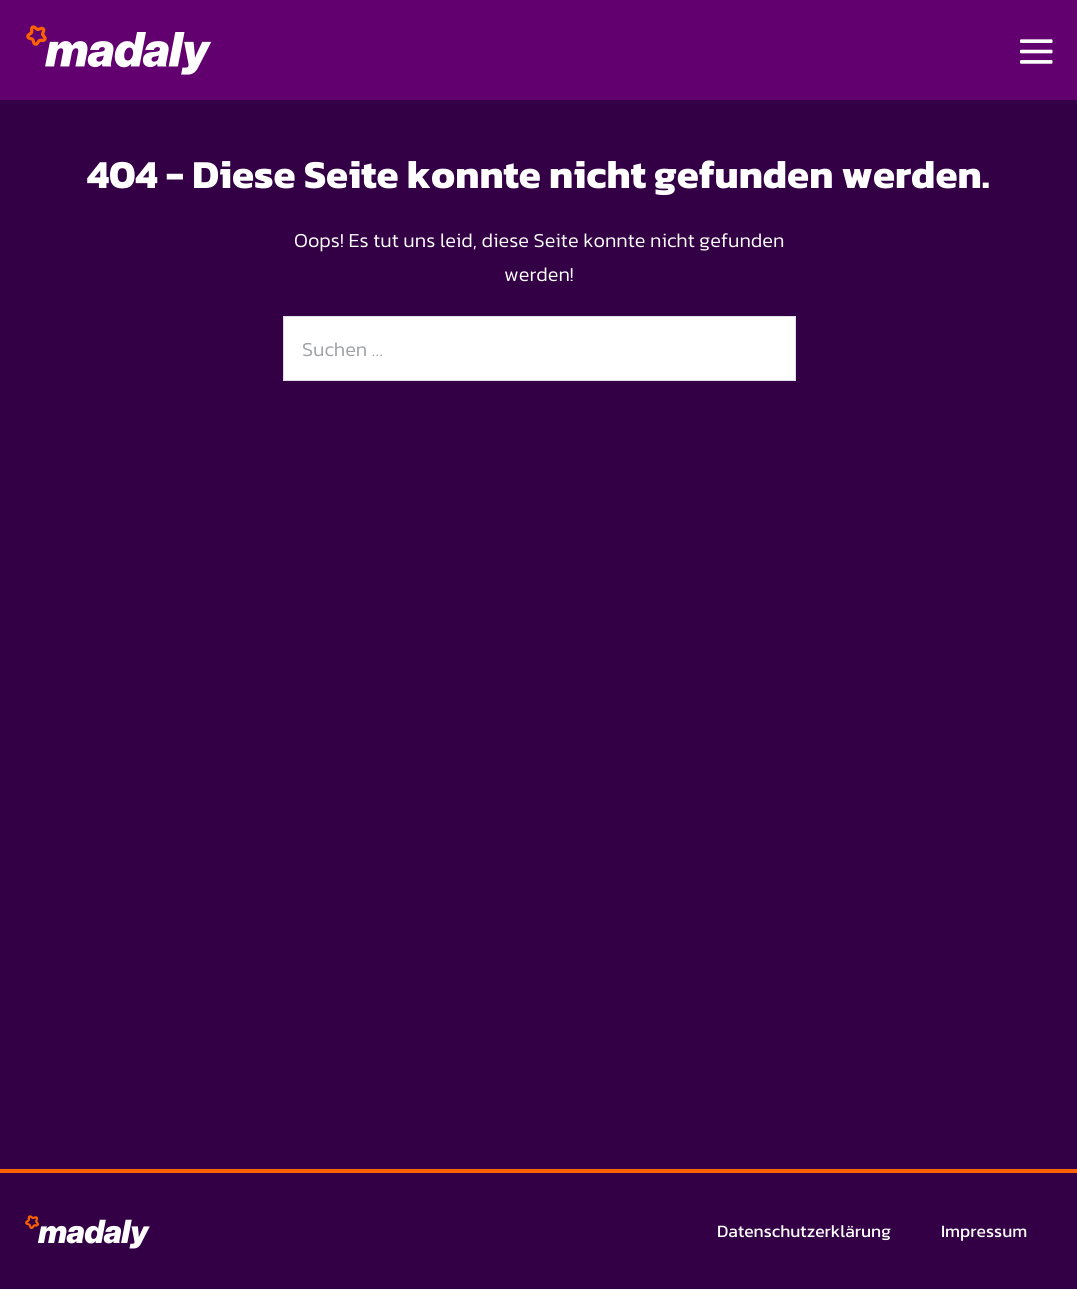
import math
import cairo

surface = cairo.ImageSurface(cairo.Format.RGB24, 1077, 1289)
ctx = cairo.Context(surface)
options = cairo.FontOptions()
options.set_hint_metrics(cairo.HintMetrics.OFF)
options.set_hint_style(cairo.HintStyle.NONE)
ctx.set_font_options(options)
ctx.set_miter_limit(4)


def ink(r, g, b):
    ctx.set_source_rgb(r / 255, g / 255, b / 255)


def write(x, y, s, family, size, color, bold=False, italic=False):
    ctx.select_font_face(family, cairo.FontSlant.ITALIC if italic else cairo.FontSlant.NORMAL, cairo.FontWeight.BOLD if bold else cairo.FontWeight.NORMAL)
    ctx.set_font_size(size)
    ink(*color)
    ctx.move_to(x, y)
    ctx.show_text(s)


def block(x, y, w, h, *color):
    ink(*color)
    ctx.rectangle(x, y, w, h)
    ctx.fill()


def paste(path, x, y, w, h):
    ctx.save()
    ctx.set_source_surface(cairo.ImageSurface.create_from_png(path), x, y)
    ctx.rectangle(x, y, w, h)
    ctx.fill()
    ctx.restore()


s1 = dict(family="Kanit", size=40, color=(255, 255, 255), bold=True)
s2 = dict(family="Kanit Light", size=20, color=(255, 255, 255))
s3 = dict(family="Kanit Light", size=20, color=(159, 161, 164))
s4 = dict(family="Kanit", size=17.5, color=(255, 255, 255))

ink(51, 0, 69)
ctx.paint()
block(0, 0, 1077, 100, 97, 0, 110)
paste("pic1.png", 26, 25, 186, 50)
paste("pic2.png", 1020, 39, 33, 25)
write(87, 188, "404 - Diese Seite konnte nicht gefunden werden.", **s1)
write(294, 247, "Oops! Es tut uns leid, diese Seite konnte nicht gefunden", **s2)
write(504, 281, "werden!", **s2)
ctx.rectangle(283.5, 316.5, 512, 64)
ctx.fill_preserve()
ink(222, 222, 229)
ctx.set_line_width(1)
ctx.stroke()
write(302, 356, "Suchen …", **s3)
block(0, 1169, 1077, 4, 252, 99, 0)
paste("pic3.png", 25, 1215, 125, 34)
write(717, 1237, "Datenschutzerklärung", **s4)
write(941, 1237, "Impressum", **s4)
surface.write_to_png("screenshot.png")
